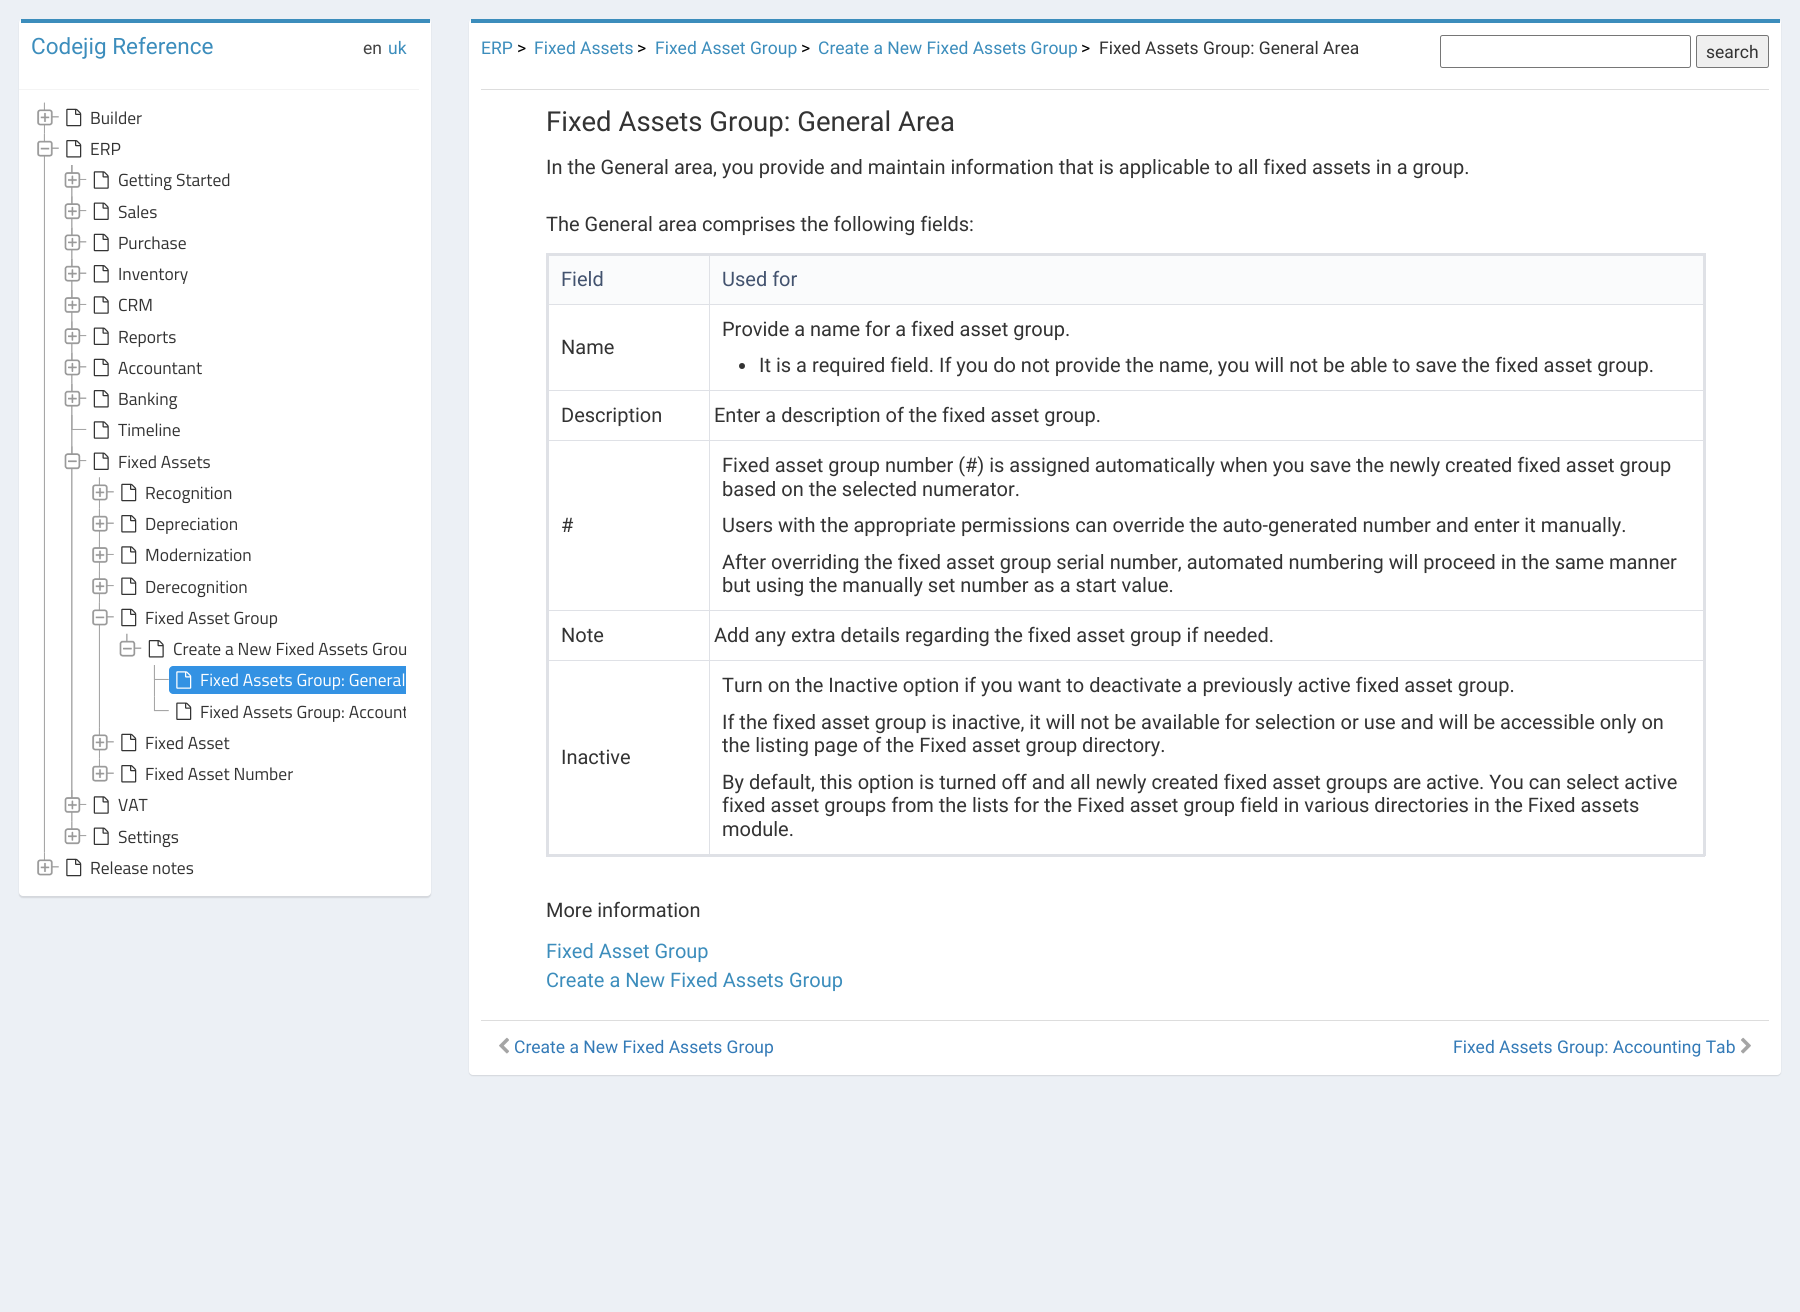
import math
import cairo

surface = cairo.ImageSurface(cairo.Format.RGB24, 1800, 1312)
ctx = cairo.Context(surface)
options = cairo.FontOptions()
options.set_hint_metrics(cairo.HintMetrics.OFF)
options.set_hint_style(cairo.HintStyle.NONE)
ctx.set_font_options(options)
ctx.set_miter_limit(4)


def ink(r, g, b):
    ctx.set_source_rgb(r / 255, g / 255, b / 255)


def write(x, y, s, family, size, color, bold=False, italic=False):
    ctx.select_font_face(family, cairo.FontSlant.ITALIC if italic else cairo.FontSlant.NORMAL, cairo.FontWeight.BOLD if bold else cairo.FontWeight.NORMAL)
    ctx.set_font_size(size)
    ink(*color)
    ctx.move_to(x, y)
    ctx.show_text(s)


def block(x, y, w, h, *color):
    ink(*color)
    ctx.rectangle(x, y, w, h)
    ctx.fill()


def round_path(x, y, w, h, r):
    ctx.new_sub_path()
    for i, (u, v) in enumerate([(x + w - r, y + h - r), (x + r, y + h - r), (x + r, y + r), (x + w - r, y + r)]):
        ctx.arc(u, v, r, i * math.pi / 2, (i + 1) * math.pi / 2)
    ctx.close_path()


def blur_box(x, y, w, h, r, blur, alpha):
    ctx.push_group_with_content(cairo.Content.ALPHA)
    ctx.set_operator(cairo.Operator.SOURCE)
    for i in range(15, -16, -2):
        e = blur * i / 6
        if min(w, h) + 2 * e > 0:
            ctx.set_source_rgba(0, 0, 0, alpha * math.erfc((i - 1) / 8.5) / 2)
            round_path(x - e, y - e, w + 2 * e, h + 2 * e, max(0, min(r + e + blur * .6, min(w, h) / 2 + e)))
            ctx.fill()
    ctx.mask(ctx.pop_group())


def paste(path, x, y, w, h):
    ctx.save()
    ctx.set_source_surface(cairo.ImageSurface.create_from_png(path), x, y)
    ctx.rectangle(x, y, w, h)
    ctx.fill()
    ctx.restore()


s1 = dict(family="Roboto", size=22.5, color=(60, 141, 188))
s2 = dict(family="Roboto", size=17.5, color=(68, 68, 68))
s3 = dict(family="Roboto", size=17.5, color=(60, 141, 188))
s4 = dict(family="Titillium Web", size=17.5, color=(51, 51, 51))
s5 = dict(family="Titillium Web", size=17.5, color=(255, 255, 255))
s6 = dict(family="Roboto", size=17.5, color=(0, 0, 0))
s7 = dict(family="Roboto", size=17.5, color=(51, 51, 51))
s8 = dict(family="Roboto", size=27.5, color=(51, 51, 51))
s9 = dict(family="Roboto", size=20, color=(51, 51, 51))
s10 = dict(family="Roboto", size=20, color=(66, 82, 110))
s11 = dict(family="Roboto", size=20, color=(60, 141, 188))
s12 = dict(family="Roboto", size=17.5, color=(51, 122, 183))

ink(236, 240, 245)
ctx.paint()
ink(0, 0, 0)
blur_box(19, 20, 412, 878, 4, 0.5, 0.1)
ink(255, 255, 255)
round_path(19, 19, 412, 877, 4)
ctx.fill()
block(21, 19, 409, 4, 60, 141, 188)
block(19, 89, 400, 1, 244, 244, 244)
write(31, 54, "Codejig Reference", **s1)
write(363, 54, "en", **s2)
write(388, 54, "uk", **s3)
paste("pic1.png", 43, 102, 2, 32)
paste("pic2.png", 37, 102, 22, 24)
paste("pic3.png", 66, 108, 16, 19)
write(90, 124, "Builder", **s4)
paste("pic4.png", 43, 133, 2, 720)
paste("pic5.png", 37, 134, 22, 23)
paste("pic6.png", 66, 140, 16, 18)
write(90, 155, "ERP", **s4)
paste("pic7.png", 71, 165, 2, 32)
paste("pic8.png", 64, 165, 23, 23)
paste("pic9.png", 93, 171, 16, 18)
write(118, 186, "Getting Started", **s4)
paste("pic10.png", 71, 196, 2, 32)
paste("pic11.png", 64, 196, 23, 24)
paste("pic12.png", 93, 202, 16, 18)
write(118, 218, "Sales", **s4)
paste("pic13.png", 71, 227, 2, 32)
paste("pic14.png", 64, 227, 23, 24)
paste("pic15.png", 93, 233, 16, 19)
write(118, 249, "Purchase", **s4)
paste("pic16.png", 71, 258, 2, 32)
paste("pic17.png", 64, 258, 23, 24)
paste("pic18.png", 93, 265, 16, 18)
write(118, 280, "Inventory", **s4)
paste("pic7.png", 71, 290, 2, 32)
paste("pic19.png", 64, 290, 23, 23)
paste("pic9.png", 93, 296, 16, 18)
write(118, 311, "CRM", **s4)
paste("pic10.png", 71, 321, 2, 32)
paste("pic11.png", 64, 321, 23, 24)
paste("pic12.png", 93, 327, 16, 18)
write(118, 343, "Reports", **s4)
paste("pic13.png", 71, 352, 2, 32)
paste("pic14.png", 64, 352, 23, 24)
paste("pic15.png", 93, 358, 16, 19)
write(118, 374, "Accountant", **s4)
paste("pic16.png", 71, 383, 2, 32)
paste("pic17.png", 64, 383, 23, 24)
paste("pic18.png", 93, 390, 16, 18)
write(118, 405, "Banking", **s4)
paste("pic7.png", 71, 415, 2, 32)
paste("pic20.png", 71, 415, 16, 15)
paste("pic9.png", 93, 421, 16, 18)
write(118, 436, "Timeline", **s4)
paste("pic21.png", 71, 446, 2, 344)
paste("pic22.png", 64, 446, 23, 24)
paste("pic12.png", 93, 452, 16, 18)
write(118, 468, "Fixed Assets", **s4)
paste("pic23.png", 98, 477, 2, 32)
paste("pic24.png", 92, 477, 22, 24)
paste("pic3.png", 121, 483, 16, 19)
write(145, 499, "Recognition", **s4)
paste("pic25.png", 98, 508, 2, 32)
paste("pic26.png", 92, 509, 22, 23)
paste("pic6.png", 121, 515, 16, 18)
write(145, 530, "Depreciation", **s4)
paste("pic27.png", 98, 540, 2, 32)
paste("pic28.png", 92, 540, 22, 23)
paste("pic29.png", 121, 546, 16, 18)
write(145, 561, "Modernization", **s4)
paste("pic30.png", 98, 571, 2, 32)
paste("pic31.png", 92, 571, 22, 24)
paste("pic32.png", 121, 577, 16, 18)
write(145, 593, "Derecognition", **s4)
paste("pic33.png", 98, 602, 2, 126)
paste("pic34.png", 92, 602, 22, 24)
paste("pic3.png", 121, 608, 16, 19)
write(145, 624, "Fixed Asset Group", **s4)
paste("pic35.png", 119, 633, 23, 24)
paste("pic18.png", 148, 640, 16, 18)
write(173, 655, "Create a New Fixed Assets Grou", **s4)
paste("pic27.png", 153, 665, 2, 32)
paste("pic36.png", 153, 665, 16, 15)
ink(51, 146, 227)
ctx.new_path()
ctx.move_to(173, 666)
ctx.line_to(406, 666)
ctx.line_to(406, 694)
ctx.line_to(173, 694)
ctx.curve_to(171, 694, 169, 692, 169, 690)
ctx.line_to(169, 670)
ctx.curve_to(169, 668, 171, 666, 173, 666)
ctx.close_path()
ctx.fill()
paste("pic37.png", 176, 671, 16, 18)
write(200, 686, "Fixed Assets Group: General", **s5)
paste("pic38.png", 153, 696, 16, 16)
paste("pic32.png", 176, 702, 16, 18)
ctx.save()
ctx.rectangle(31, 103, 375, 781)
ctx.clip()
write(200, 718, "Fixed Assets Group: Account", **s4)
ctx.restore()
paste("pic39.png", 98, 727, 2, 32)
paste("pic40.png", 92, 727, 22, 24)
paste("pic3.png", 121, 733, 16, 19)
write(145, 749, "Fixed Asset", **s4)
paste("pic41.png", 92, 758, 22, 24)
paste("pic6.png", 121, 765, 16, 18)
write(145, 780, "Fixed Asset Number", **s4)
paste("pic7.png", 71, 790, 2, 32)
paste("pic8.png", 64, 790, 23, 23)
paste("pic9.png", 93, 796, 16, 18)
write(118, 811, "VAT", **s4)
paste("pic42.png", 64, 821, 23, 24)
paste("pic12.png", 93, 827, 16, 18)
write(118, 843, "Settings", **s4)
paste("pic43.png", 37, 852, 22, 24)
paste("pic3.png", 66, 858, 16, 19)
write(90, 874, "Release notes", **s4)
ink(0, 0, 0)
blur_box(469, 20, 1312, 1056, 4, 0.5, 0.1)
ink(255, 255, 255)
round_path(469, 19, 1312, 1056, 4)
ctx.fill()
block(471, 19, 1309, 4, 60, 141, 188)
write(481, 54, "ERP", **s3)
write(517, 54, ">", **s6)
write(534, 54, "Fixed Assets", **s3)
write(637, 54, ">", **s6)
write(655, 54, "Fixed Asset Group", **s3)
write(801, 54, ">", **s6)
write(818, 54, "Create a New Fixed Assets Group", **s3)
write(1081, 54, ">", **s6)
write(1099, 54, "Fixed Assets Group: General Area", **s7)
round_path(1440.5, 35.5, 250, 32, 2)
ink(118, 118, 118)
ctx.set_line_width(1)
ctx.stroke()
ink(239, 239, 239)
round_path(1696.5, 35.5, 72, 32, 2)
ctx.fill_preserve()
ink(118, 118, 118)
ctx.stroke()
write(1706, 58, "search", **s7)
block(481, 89, 1288, 1, 221, 221, 221)
write(546, 131, "Fixed Assets Group: General Area", **s8)
write(546, 174, "In the General area, you provide and maintain information that is applicable to all fixed assets in a group.", **s9)
write(546, 231, "The General area comprises the following fields:", **s9)
block(709, 304, 995, 1, 223, 225, 230)
block(709, 390, 995, 1, 223, 225, 230)
block(709, 440, 995, 1, 223, 225, 230)
block(709, 610, 995, 1, 223, 225, 230)
block(709, 660, 995, 1, 223, 225, 230)
block(709, 660, 1, 195, 223, 225, 230)
block(546, 660, 164, 1, 223, 225, 230)
block(709, 610, 1, 51, 223, 225, 230)
block(546, 610, 164, 1, 223, 225, 230)
block(709, 440, 1, 171, 223, 225, 230)
block(546, 440, 164, 1, 223, 225, 230)
block(709, 390, 1, 51, 223, 225, 230)
block(546, 390, 164, 1, 223, 225, 230)
block(709, 304, 1, 87, 223, 225, 230)
block(546, 304, 164, 1, 223, 225, 230)
block(709, 253, 1, 52, 223, 225, 230)
block(546, 253, 1159, 3, 223, 225, 230)
block(1703, 253, 3, 603, 223, 225, 230)
block(546, 854, 1159, 3, 223, 225, 230)
block(546, 253, 3, 603, 223, 225, 230)
block(549, 256, 160, 48, 250, 251, 252)
write(561, 286, "Field", **s10)
block(710, 256, 993, 48, 250, 251, 252)
write(722, 286, "Used for", **s10)
write(561, 354, "Name", **s9)
write(722, 336, "Provide a name for a fixed asset group.", **s9)
ctx.new_path()
ctx.arc(742, 366, 3, 0, 2 * math.pi)
ctx.fill()
write(759, 372, "It is a required field. If you do not provide the name, you will not be able to save the fixed asset group.", **s9)
write(561, 422, "Description", **s9)
write(714, 422, "Enter a description of the fixed asset group.", **s9)
write(561, 532, "#", **s9)
write(722, 472, "Fixed asset group number (#) is assigned automatically when you save the newly created fixed asset group", **s9)
write(722, 496, "based on the selected numerator.", **s9)
write(722, 532, "Users with the appropriate permissions can override the auto-generated number and enter it manually.", **s9)
write(722, 569, "After overriding the fixed asset group serial number, automated numbering will proceed in the same manner", **s9)
write(722, 592, "but using the manually set number as a start value.", **s9)
write(561, 642, "Note", **s9)
write(714, 642, "Add any extra details regarding the fixed asset group if needed.", **s9)
write(561, 764, "Inactive", **s9)
write(722, 692, "Turn on the Inactive option if you want to deactivate a previously active fixed asset group.", **s9)
write(722, 729, "If the fixed asset group is inactive, it will not be available for selection or use and will be accessible only on", **s9)
write(722, 752, "the listing page of the Fixed asset group directory.", **s9)
write(722, 789, "By default, this option is turned off and all newly created fixed asset groups are active. You can select active", **s9)
write(722, 812, "fixed asset groups from the lists for the Fixed asset group field in various directories in the Fixed assets", **s9)
write(722, 836, "module.", **s9)
write(546, 917, "More information", **s9)
write(546, 958, "Fixed Asset Group", **s11)
write(546, 987, "Create a New Fixed Assets Group", **s11)
block(481, 1020, 1288, 1, 221, 221, 221)
paste("pic44.png", 499, 1037, 10, 17)
write(514, 1053, "Create a New Fixed Assets Group", **s12)
write(1453, 1053, "Fixed Assets Group: Accounting Tab", **s12)
paste("pic45.png", 1741, 1037, 10, 17)
surface.write_to_png("screenshot.png")
